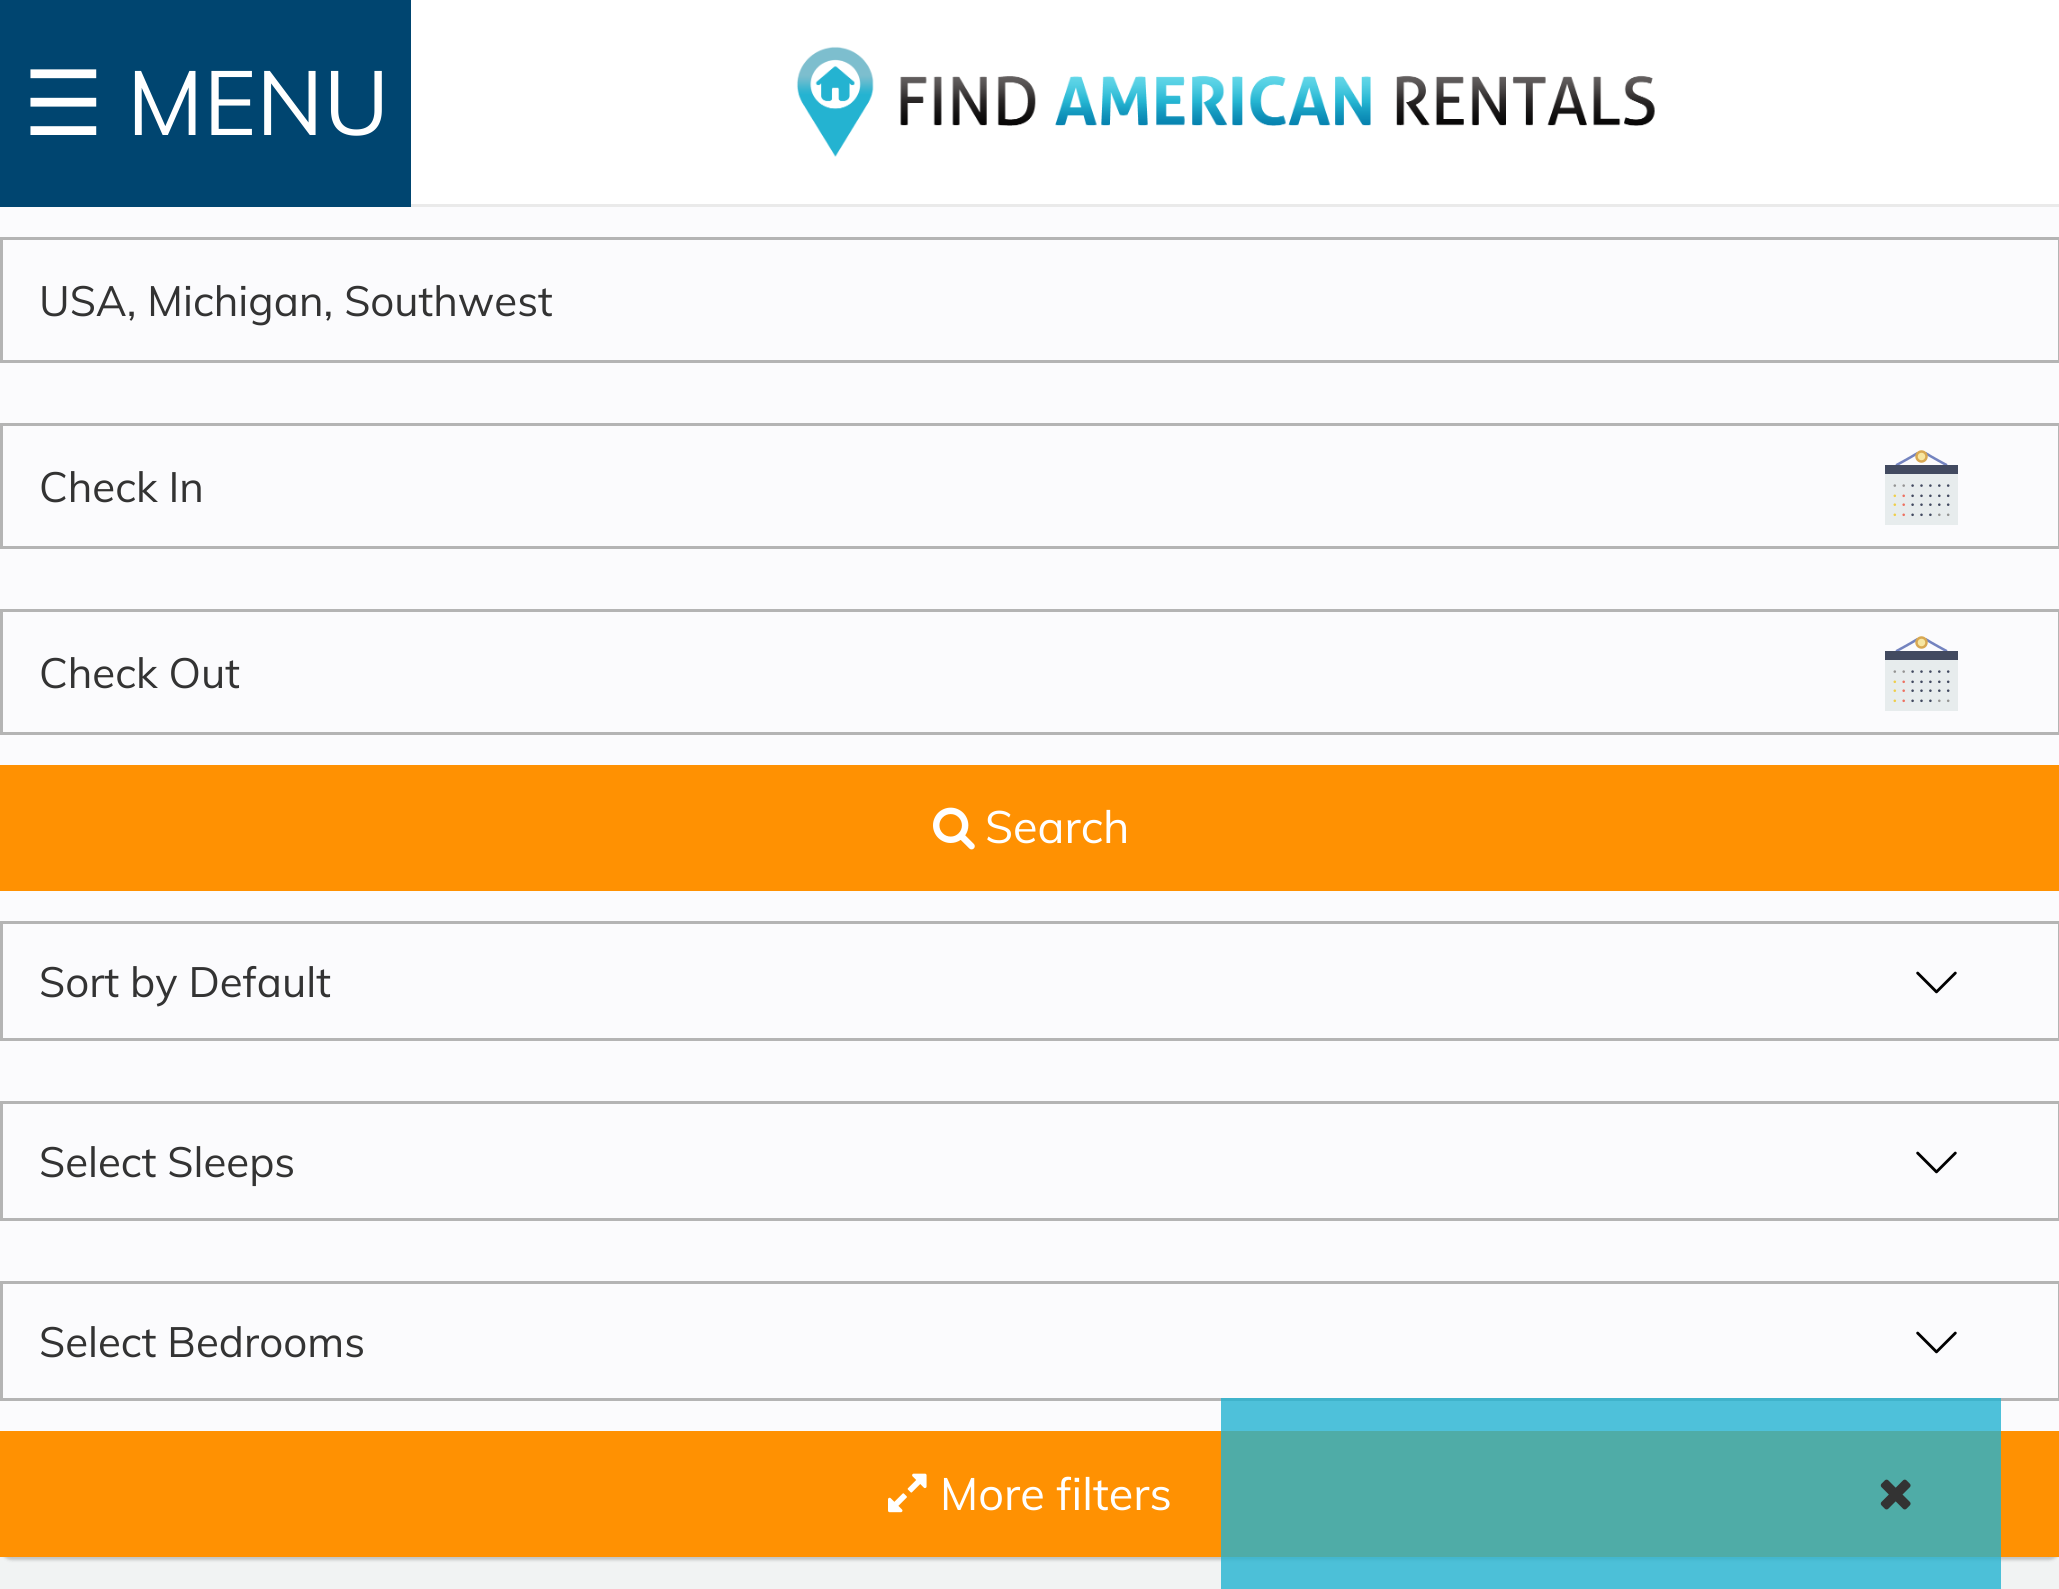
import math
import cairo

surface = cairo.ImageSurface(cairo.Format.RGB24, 2059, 1589)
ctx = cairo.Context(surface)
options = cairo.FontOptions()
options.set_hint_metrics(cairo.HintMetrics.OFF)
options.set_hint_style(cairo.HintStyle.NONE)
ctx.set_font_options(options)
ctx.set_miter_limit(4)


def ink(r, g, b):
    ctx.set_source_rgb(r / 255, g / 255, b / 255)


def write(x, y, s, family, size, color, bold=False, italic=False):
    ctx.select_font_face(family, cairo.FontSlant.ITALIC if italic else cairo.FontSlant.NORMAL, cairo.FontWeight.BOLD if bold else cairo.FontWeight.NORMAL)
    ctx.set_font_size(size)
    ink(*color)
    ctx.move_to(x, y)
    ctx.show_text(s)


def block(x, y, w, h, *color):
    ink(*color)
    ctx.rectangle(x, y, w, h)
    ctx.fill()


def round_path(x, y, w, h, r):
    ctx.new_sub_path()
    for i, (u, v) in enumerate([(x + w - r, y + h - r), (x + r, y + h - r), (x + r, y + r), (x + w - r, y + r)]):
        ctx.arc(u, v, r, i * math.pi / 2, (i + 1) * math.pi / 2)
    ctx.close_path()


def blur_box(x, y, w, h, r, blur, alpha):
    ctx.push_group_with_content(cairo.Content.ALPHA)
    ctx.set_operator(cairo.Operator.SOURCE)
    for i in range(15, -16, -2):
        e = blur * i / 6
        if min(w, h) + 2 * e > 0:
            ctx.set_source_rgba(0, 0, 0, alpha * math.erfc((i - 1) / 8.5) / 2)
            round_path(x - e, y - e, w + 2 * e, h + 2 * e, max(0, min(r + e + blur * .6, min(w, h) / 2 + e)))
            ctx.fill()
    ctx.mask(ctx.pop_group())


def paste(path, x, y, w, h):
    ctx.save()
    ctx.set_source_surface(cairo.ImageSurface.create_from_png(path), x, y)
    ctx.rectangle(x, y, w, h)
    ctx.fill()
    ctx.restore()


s1 = dict(family="DejaVu Sans", size=90, color=(255, 255, 255))
s2 = dict(family="Muli", size=90, color=(255, 255, 255))
s3 = dict(family="Muli", size=42, color=(51, 51, 51))
s4 = dict(family="Muli", size=45, color=(255, 255, 255))

ink(241, 243, 243)
ctx.paint()
ink(0, 0, 0)
blur_box(0, 3, 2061, 1557, 12, 1.5, 0.2)
block(0, 0, 411, 207, 0, 69, 112)
write(23, 135, "☰", **s1)
write(127, 135, "MENU", **s2)
block(411, 0, 1648, 204, 255, 255, 255)
block(411, 204, 1648, 3, 234, 234, 234)
paste("pic1.png", 796, 46, 859, 111)
block(0, 207, 2059, 1224, 251, 251, 253)
ctx.rectangle(1.5, 238.5, 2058, 123)
ink(180, 180, 180)
ctx.set_line_width(3)
ctx.stroke()
write(39, 316, "USA, Michigan, Southwest", **s3)
paste("pic2.png", 1885, 450, 73, 75)
ctx.rectangle(1.5, 424.5, 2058, 123)
ink(180, 180, 180)
ctx.stroke()
write(39, 502, "Check In", **s3)
paste("pic2.png", 1885, 636, 73, 75)
ctx.rectangle(1.5, 610.5, 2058, 123)
ink(180, 180, 180)
ctx.stroke()
write(39, 688, "Check Out", **s3)
block(0, 765, 2059, 126, 255, 145, 2)
paste("pic3.png", 933, 807, 42, 43)
write(985, 843, "Search", **s4)
paste("pic4.png", 1916, 971, 41, 23)
ctx.rectangle(1.5, 922.5, 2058, 117)
ink(180, 180, 180)
ctx.stroke()
write(39, 997, "Sort by Default", **s3)
paste("pic4.png", 1916, 1151, 41, 23)
ctx.rectangle(1.5, 1102.5, 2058, 117)
ink(180, 180, 180)
ctx.stroke()
write(39, 1177, "Select Sleeps", **s3)
paste("pic4.png", 1916, 1331, 41, 23)
ctx.rectangle(1.5, 1282.5, 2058, 117)
ink(180, 180, 180)
ctx.stroke()
write(39, 1357, "Select Bedrooms", **s3)
block(0, 1431, 2059, 126, 255, 145, 2)
paste("pic5.png", 888, 1473, 39, 40)
write(940, 1510, "More filters", **s4)
ctx.set_source_rgba(0.141, 0.702, 0.82, 0.8)
ctx.rectangle(1221, 1398, 780, 191)
ctx.fill()
paste("pic6.png", 1880, 1479, 31, 31)
surface.write_to_png("screenshot.png")
